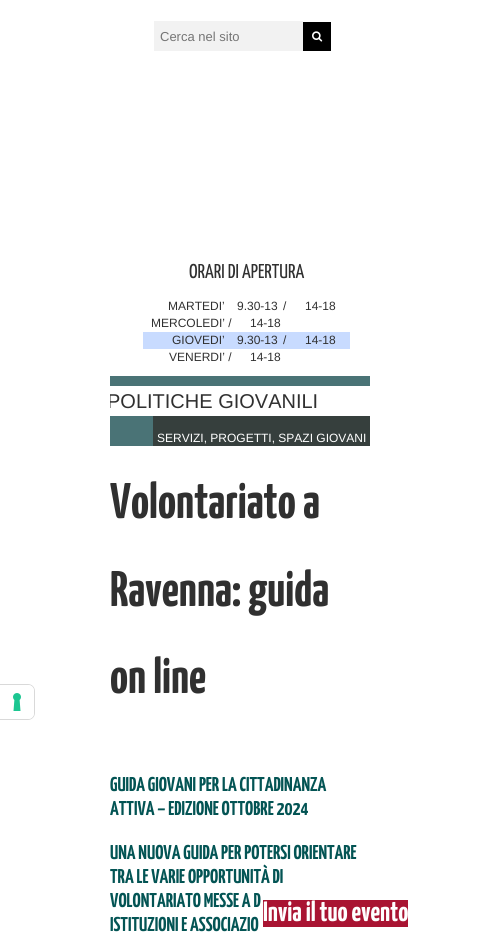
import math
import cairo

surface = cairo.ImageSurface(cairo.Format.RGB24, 480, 936)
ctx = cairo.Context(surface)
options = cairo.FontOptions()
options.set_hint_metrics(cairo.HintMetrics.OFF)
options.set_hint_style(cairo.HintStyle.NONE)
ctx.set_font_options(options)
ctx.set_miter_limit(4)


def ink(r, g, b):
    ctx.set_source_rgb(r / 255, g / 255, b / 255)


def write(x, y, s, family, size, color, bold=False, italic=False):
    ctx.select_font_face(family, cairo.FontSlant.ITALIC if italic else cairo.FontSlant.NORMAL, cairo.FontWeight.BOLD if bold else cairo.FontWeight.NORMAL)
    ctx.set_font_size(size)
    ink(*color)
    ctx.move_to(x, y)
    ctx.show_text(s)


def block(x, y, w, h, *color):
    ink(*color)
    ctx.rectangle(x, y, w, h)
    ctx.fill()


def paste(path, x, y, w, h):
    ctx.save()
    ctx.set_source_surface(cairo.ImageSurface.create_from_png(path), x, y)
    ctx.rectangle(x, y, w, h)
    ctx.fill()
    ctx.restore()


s1 = dict(family="Liberation Sans", size=13, color=(117, 117, 117))
s2 = dict(family="Yanone Kaffeesatz", size=20, color=(48, 48, 48))
s3 = dict(family="Liberation Sans", size=12, color=(48, 48, 48))
s4 = dict(family="Liberation Sans", size=20, color=(48, 48, 48))
s5 = dict(family="Liberation Sans", size=12, color=(255, 255, 255))
s6 = dict(family="Yanone Kaffeesatz", size=50, color=(48, 48, 48), bold=True)
s7 = dict(family="Yanone Kaffeesatz", size=20, color=(3, 84, 84), bold=True)
s8 = dict(family="Yanone Kaffeesatz", size=28, color=(255, 255, 255), bold=True)

ink(255, 255, 255)
ctx.paint()
block(154, 21, 149, 30, 242, 242, 242)
write(160, 41, "Cerca nel sito", **s1)
block(303, 22, 28, 29, 0, 0, 0)
paste("pic1.png", 312, 31, 11, 11)
write(189, 278, "ORARI DI APERTURA", **s2)
write(168, 310, "MARTEDI’", **s3)
write(237, 310, "9.30-13", **s3)
write(283, 310, "/", **s3)
write(305, 310, "14-18", **s3)
write(151, 327, "MERCOLEDI’ /", **s3)
write(250, 327, "14-18", **s3)
block(143, 332, 207, 17, 200, 219, 255)
write(172, 344, "GIOVEDI’", **s3)
write(237, 344, "9.30-13", **s3)
write(283, 344, "/", **s3)
write(305, 344, "14-18", **s3)
write(169, 361, "VENERDI’ /", **s3)
write(250, 361, "14-18", **s3)
block(110, 376, 260, 70, 74, 115, 118)
block(110, 386, 260, 30, 255, 255, 255)
ctx.save()
ctx.rectangle(110, 62, 260, 384)
ctx.clip()
write(107, 408, "POLITICHE GIOVANILI", **s4)
ctx.restore()
block(153, 416, 217, 30, 54, 63, 61)
write(157, 442, "SERVIZI, PROGETTI, SPAZI GIOVANI", **s5)
ctx.new_path()
ctx.move_to(-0.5, 684.5)
ctx.line_to(28, 684.5)
ctx.curve_to(31.5, 684.5, 34.5, 687.5, 34.5, 691)
ctx.line_to(34.5, 713)
ctx.curve_to(34.5, 716.5, 31.5, 719.5, 28, 719.5)
ctx.line_to(-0.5, 719.5)
ctx.close_path()
ink(217, 217, 217)
ctx.set_line_width(1)
ctx.stroke()
ink(255, 255, 255)
ctx.new_path()
ctx.move_to(0, 685)
ctx.line_to(28, 685)
ctx.curve_to(31.5, 685, 34, 687.5, 34, 691)
ctx.line_to(34, 713)
ctx.curve_to(34, 716.5, 31.5, 719, 28, 719)
ctx.line_to(0, 719)
ctx.close_path()
ctx.fill()
paste("pic2.png", 13, 693, 8, 18)
write(110, 518, "Volontariato a", **s6)
write(110, 606, "Ravenna: guida", **s6)
write(110, 693, "on line", **s6)
write(110, 791, "GUIDA GIOVANI PER LA CITTADINANZA", **s7)
write(110, 815, "ATTIVA – EDIZIONE OTTOBRE 2024", **s7)
write(110, 859, "UNA NUOVA GUIDA PER POTERSI ORIENTARE", **s7)
write(110, 883, "TRA LE VARIE OPPORTUNITÀ DI", **s7)
write(110, 907, "VOLONTARIATO MESSE A D", **s7)
write(110, 931, "ISTITUZIONI E ASSOCIAZIO", **s7)
block(263, 900, 145, 27, 169, 20, 50)
write(263, 921, "Invia il tuo evento", **s8)
surface.write_to_png("screenshot.png")
